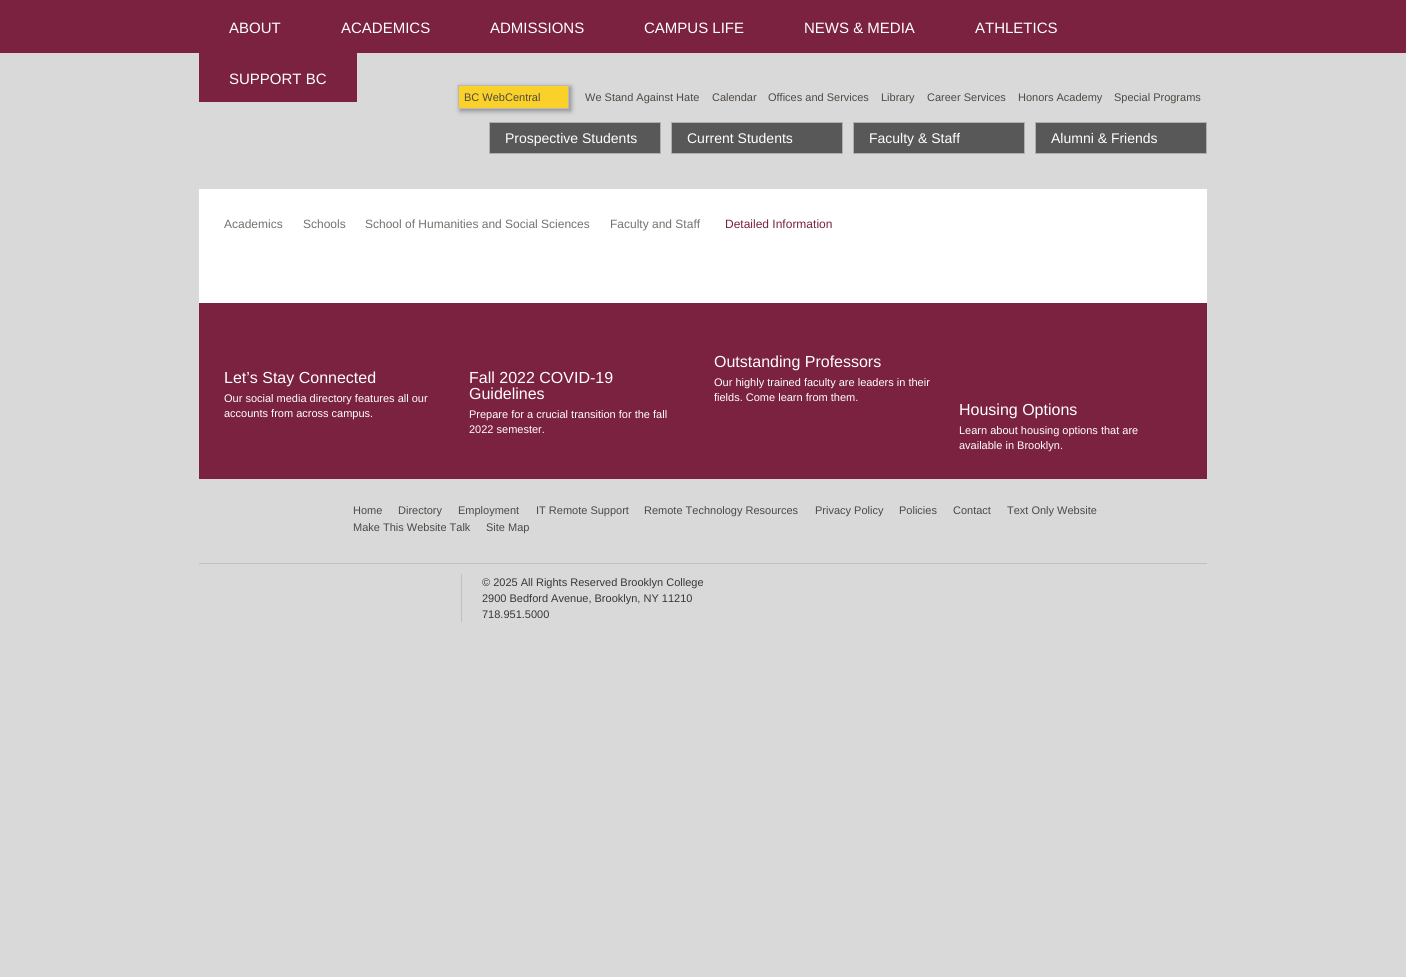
import math
import cairo

surface = cairo.ImageSurface(cairo.Format.RGB24, 1406, 977)
ctx = cairo.Context(surface)
options = cairo.FontOptions()
options.set_hint_metrics(cairo.HintMetrics.OFF)
options.set_hint_style(cairo.HintStyle.NONE)
ctx.set_font_options(options)
ctx.set_miter_limit(4)


def ink(r, g, b):
    ctx.set_source_rgb(r / 255, g / 255, b / 255)


def write(x, y, s, family, size, color, bold=False, italic=False):
    ctx.select_font_face(family, cairo.FontSlant.ITALIC if italic else cairo.FontSlant.NORMAL, cairo.FontWeight.BOLD if bold else cairo.FontWeight.NORMAL)
    ctx.set_font_size(size)
    ink(*color)
    ctx.move_to(x, y)
    ctx.show_text(s)


def block(x, y, w, h, *color):
    ink(*color)
    ctx.rectangle(x, y, w, h)
    ctx.fill()


def round_path(x, y, w, h, r):
    ctx.new_sub_path()
    for i, (u, v) in enumerate([(x + w - r, y + h - r), (x + r, y + h - r), (x + r, y + r), (x + w - r, y + r)]):
        ctx.arc(u, v, r, i * math.pi / 2, (i + 1) * math.pi / 2)
    ctx.close_path()


def blur_box(x, y, w, h, r, blur, alpha):
    ctx.push_group_with_content(cairo.Content.ALPHA)
    ctx.set_operator(cairo.Operator.SOURCE)
    for i in range(15, -16, -2):
        e = blur * i / 6
        if min(w, h) + 2 * e > 0:
            ctx.set_source_rgba(0, 0, 0, alpha * math.erfc((i - 1) / 8.5) / 2)
            round_path(x - e, y - e, w + 2 * e, h + 2 * e, max(0, min(r + e + blur * .6, min(w, h) / 2 + e)))
            ctx.fill()
    ctx.mask(ctx.pop_group())


s1 = dict(family="Liberation Sans", size=15, color=(255, 255, 255))
s2 = dict(family="Liberation Sans", size=11, color=(78, 73, 68))
s3 = dict(family="Liberation Sans", size=14, color=(255, 255, 255))
s4 = dict(family="Liberation Sans", size=12, color=(118, 113, 107))
s5 = dict(family="Liberation Sans", size=12, color=(122, 33, 63))
s6 = dict(family="Liberation Sans", size=16, color=(255, 255, 255))
s7 = dict(family="Liberation Sans", size=11, color=(255, 255, 255))
s8 = dict(family="Liberation Sans", size=11, color=(56, 55, 54))

ink(217, 217, 217)
ctx.paint()
block(0, 0, 1406, 53, 123, 34, 64)
write(229, 33, "ABOUT", **s1)
write(341, 33, "ACADEMICS", **s1)
write(490, 33, "ADMISSIONS", **s1)
write(644, 33, "CAMPUS LIFE", **s1)
write(804, 33, "NEWS & MEDIA", **s1)
write(975, 33, "ATHLETICS", **s1)
block(199, 53, 158, 49, 123, 34, 64)
write(229, 84, "SUPPORT BC", **s1)
ink(136, 136, 136)
blur_box(460, 87, 111, 24, 0, 2.5, 1)
ink(250, 209, 41)
ctx.rectangle(458.5, 85.5, 110, 23)
ctx.fill_preserve()
ink(187, 184, 181)
ctx.set_line_width(1)
ctx.stroke()
write(464, 101, "BC WebCentral", **s2)
write(585, 101, "We Stand Against Hate", **s2)
write(712, 101, "Calendar", **s2)
write(768, 101, "Offices and Services", **s2)
write(881, 101, "Library", **s2)
write(927, 101, "Career Services", **s2)
write(1018, 101, "Honors Academy", **s2)
write(1114, 101, "Special Programs", **s2)
ink(88, 88, 88)
ctx.rectangle(489.5, 122.5, 171, 31)
ctx.fill_preserve()
ink(177, 175, 172)
ctx.stroke()
write(505, 143, "Prospective Students", **s3)
ink(88, 88, 88)
ctx.rectangle(671.5, 122.5, 171, 31)
ctx.fill_preserve()
ink(177, 175, 172)
ctx.stroke()
write(687, 143, "Current Students", **s3)
ink(88, 88, 88)
ctx.rectangle(853.5, 122.5, 171, 31)
ctx.fill_preserve()
ink(177, 175, 172)
ctx.stroke()
write(869, 143, "Faculty & Staff", **s3)
ink(88, 88, 88)
ctx.rectangle(1035.5, 122.5, 171, 31)
ctx.fill_preserve()
ink(177, 175, 172)
ctx.stroke()
write(1051, 143, "Alumni & Friends", **s3)
block(199, 189, 1008, 114, 255, 255, 255)
write(224, 228, "Academics", **s4)
write(303, 228, "Schools", **s4)
write(365, 228, "School of Humanities and Social Sciences", **s4)
write(610, 228, "Faculty and Staff", **s4)
write(725, 228, "Detailed Information", **s5)
block(199, 303, 1008, 176, 123, 34, 64)
write(224, 383, "Let’s Stay Connected", **s6)
write(224, 402, "Our social media directory features all our", **s7)
write(224, 417, "accounts from across campus.", **s7)
write(469, 383, "Fall 2022 COVID-19", **s6)
write(469, 399, "Guidelines", **s6)
write(469, 418, "Prepare for a crucial transition for the fall", **s7)
write(469, 433, "2022 semester.", **s7)
write(714, 367, "Outstanding Professors", **s6)
write(714, 386, "Our highly trained faculty are leaders in their", **s7)
write(714, 401, "fields. Come learn from them.", **s7)
write(959, 415, "Housing Options", **s6)
write(959, 434, "Learn about housing options that are", **s7)
write(959, 449, "available in Brooklyn.", **s7)
block(199, 563, 1008, 1, 193, 192, 190)
write(353, 514, "Home", **s2)
write(398, 514, "Directory", **s2)
write(458, 514, "Employment", **s2)
write(536, 514, "IT Remote Support", **s2)
write(644, 514, "Remote Technology Resources", **s2)
write(815, 514, "Privacy Policy", **s2)
write(899, 514, "Policies", **s2)
write(953, 514, "Contact", **s2)
write(1007, 514, "Text Only Website", **s2)
write(353, 531, "Make This Website Talk", **s2)
write(486, 531, "Site Map", **s2)
block(461, 574, 1, 48, 193, 192, 190)
write(482, 586, "© 2025 All Rights Reserved Brooklyn College", **s8)
write(482, 602, "2900 Bedford Avenue, Brooklyn, NY 11210", **s8)
write(482, 618, "718.951.5000", **s8)
surface.write_to_png("screenshot.png")
